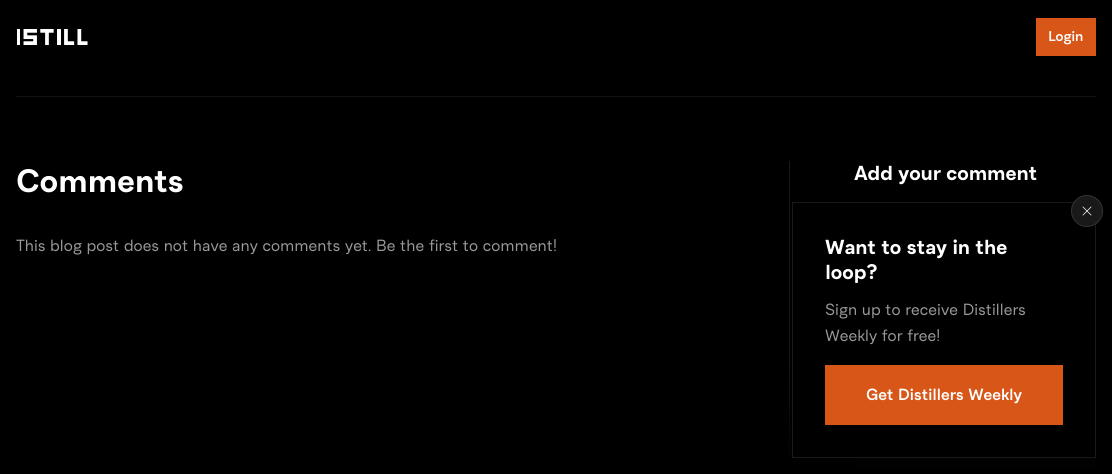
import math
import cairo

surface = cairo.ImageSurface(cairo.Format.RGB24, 1112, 474)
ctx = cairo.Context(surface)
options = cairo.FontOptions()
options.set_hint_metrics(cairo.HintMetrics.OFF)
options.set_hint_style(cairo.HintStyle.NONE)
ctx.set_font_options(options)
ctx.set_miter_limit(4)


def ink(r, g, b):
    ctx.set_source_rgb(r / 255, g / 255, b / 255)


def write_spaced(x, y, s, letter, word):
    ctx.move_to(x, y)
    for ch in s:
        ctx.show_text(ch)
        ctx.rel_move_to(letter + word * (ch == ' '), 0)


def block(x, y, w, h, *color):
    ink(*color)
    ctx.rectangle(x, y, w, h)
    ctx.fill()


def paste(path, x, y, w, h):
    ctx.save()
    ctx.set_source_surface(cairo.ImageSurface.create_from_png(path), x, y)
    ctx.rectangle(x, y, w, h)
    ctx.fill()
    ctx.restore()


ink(0, 0, 0)
ctx.paint()
paste("pic1.png", 17, 29, 71, 16)
block(1036, 18, 60, 38, 216, 86, 24)
ctx.select_font_face("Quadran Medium")
ctx.set_font_size(14)
ink(255, 255, 255)
write_spaced(1048, 41, "Login", -0.5, 0)
block(16, 96, 1080, 1, 25, 25, 25)
gradient = cairo.LinearGradient(556, 0, 556, 128)
gradient.add_color_stop_rgba(0, 0, 0, 0, 1)
gradient.add_color_stop_rgba(1, 0, 0, 0, 0)
ctx.set_source(gradient)
ctx.rectangle(16, 96, 1080, 1)
ctx.fill()
block(789, 161, 1, 313, 25, 25, 25)
block(854, 458, 242, 15, 13, 13, 13)
gradient = cairo.LinearGradient(556, 474, 556, 346)
gradient.add_color_stop_rgba(0, 0, 0, 0, 1)
gradient.add_color_stop_rgba(1, 0, 0, 0, 0)
ctx.set_source(gradient)
ctx.rectangle(789, 359, 307, 115)
ctx.fill()
ctx.select_font_face("Quadran", cairo.FontSlant.NORMAL, cairo.FontWeight.BOLD)
ctx.set_font_size(32)
ink(255, 255, 255)
write_spaced(16, 192, "Comments", -0.75, 0)
ctx.select_font_face("Quadran")
ctx.set_font_size(16)
ink(153, 153, 153)
write_spaced(16, 251, "This blog post does not have any comments yet. Be the first to comment!", -0.4, 1)
ctx.select_font_face("Quadran", cairo.FontSlant.NORMAL, cairo.FontWeight.BOLD)
ctx.set_font_size(20)
ink(255, 255, 255)
write_spaced(854, 180, "Add your comment", -0.5, 1)
ctx.rectangle(792.5, 202.5, 303, 255)
ink(25, 25, 25)
ctx.set_line_width(1)
ctx.stroke()
ctx.arc(1087, 211, 15.5, 0, 2 * math.pi)
ctx.fill_preserve()
ink(51, 51, 51)
ctx.stroke()
ink(255, 255, 255)
ctx.new_path()
ctx.move_to(1083, 206.5)
ctx.line_to(1091.5, 215)
ctx.line_to(1091, 215.5)
ctx.line_to(1082.5, 207)
ctx.close_path()
ctx.fill()
ctx.new_path()
ctx.move_to(1082.5, 215)
ctx.line_to(1091, 206.5)
ctx.line_to(1091.5, 207)
ctx.line_to(1083, 215.5)
ctx.close_path()
ctx.fill()
write_spaced(825, 254, "Want to stay in the", -0.5, 1)
write_spaced(825, 279, "loop?", -0.5, 0)
ctx.select_font_face("Quadran")
ctx.set_font_size(16)
ink(153, 153, 153)
write_spaced(825, 315, "Sign up to receive Distillers", -0.4, 1)
write_spaced(825, 341, "Weekly for free!", -0.4, 1)
block(825, 365, 238, 60, 216, 86, 24)
ctx.select_font_face("Quadran Medium")
ink(255, 255, 255)
write_spaced(866, 400, "Get Distillers Weekly", -0.4, 1)
surface.write_to_png("screenshot.png")
